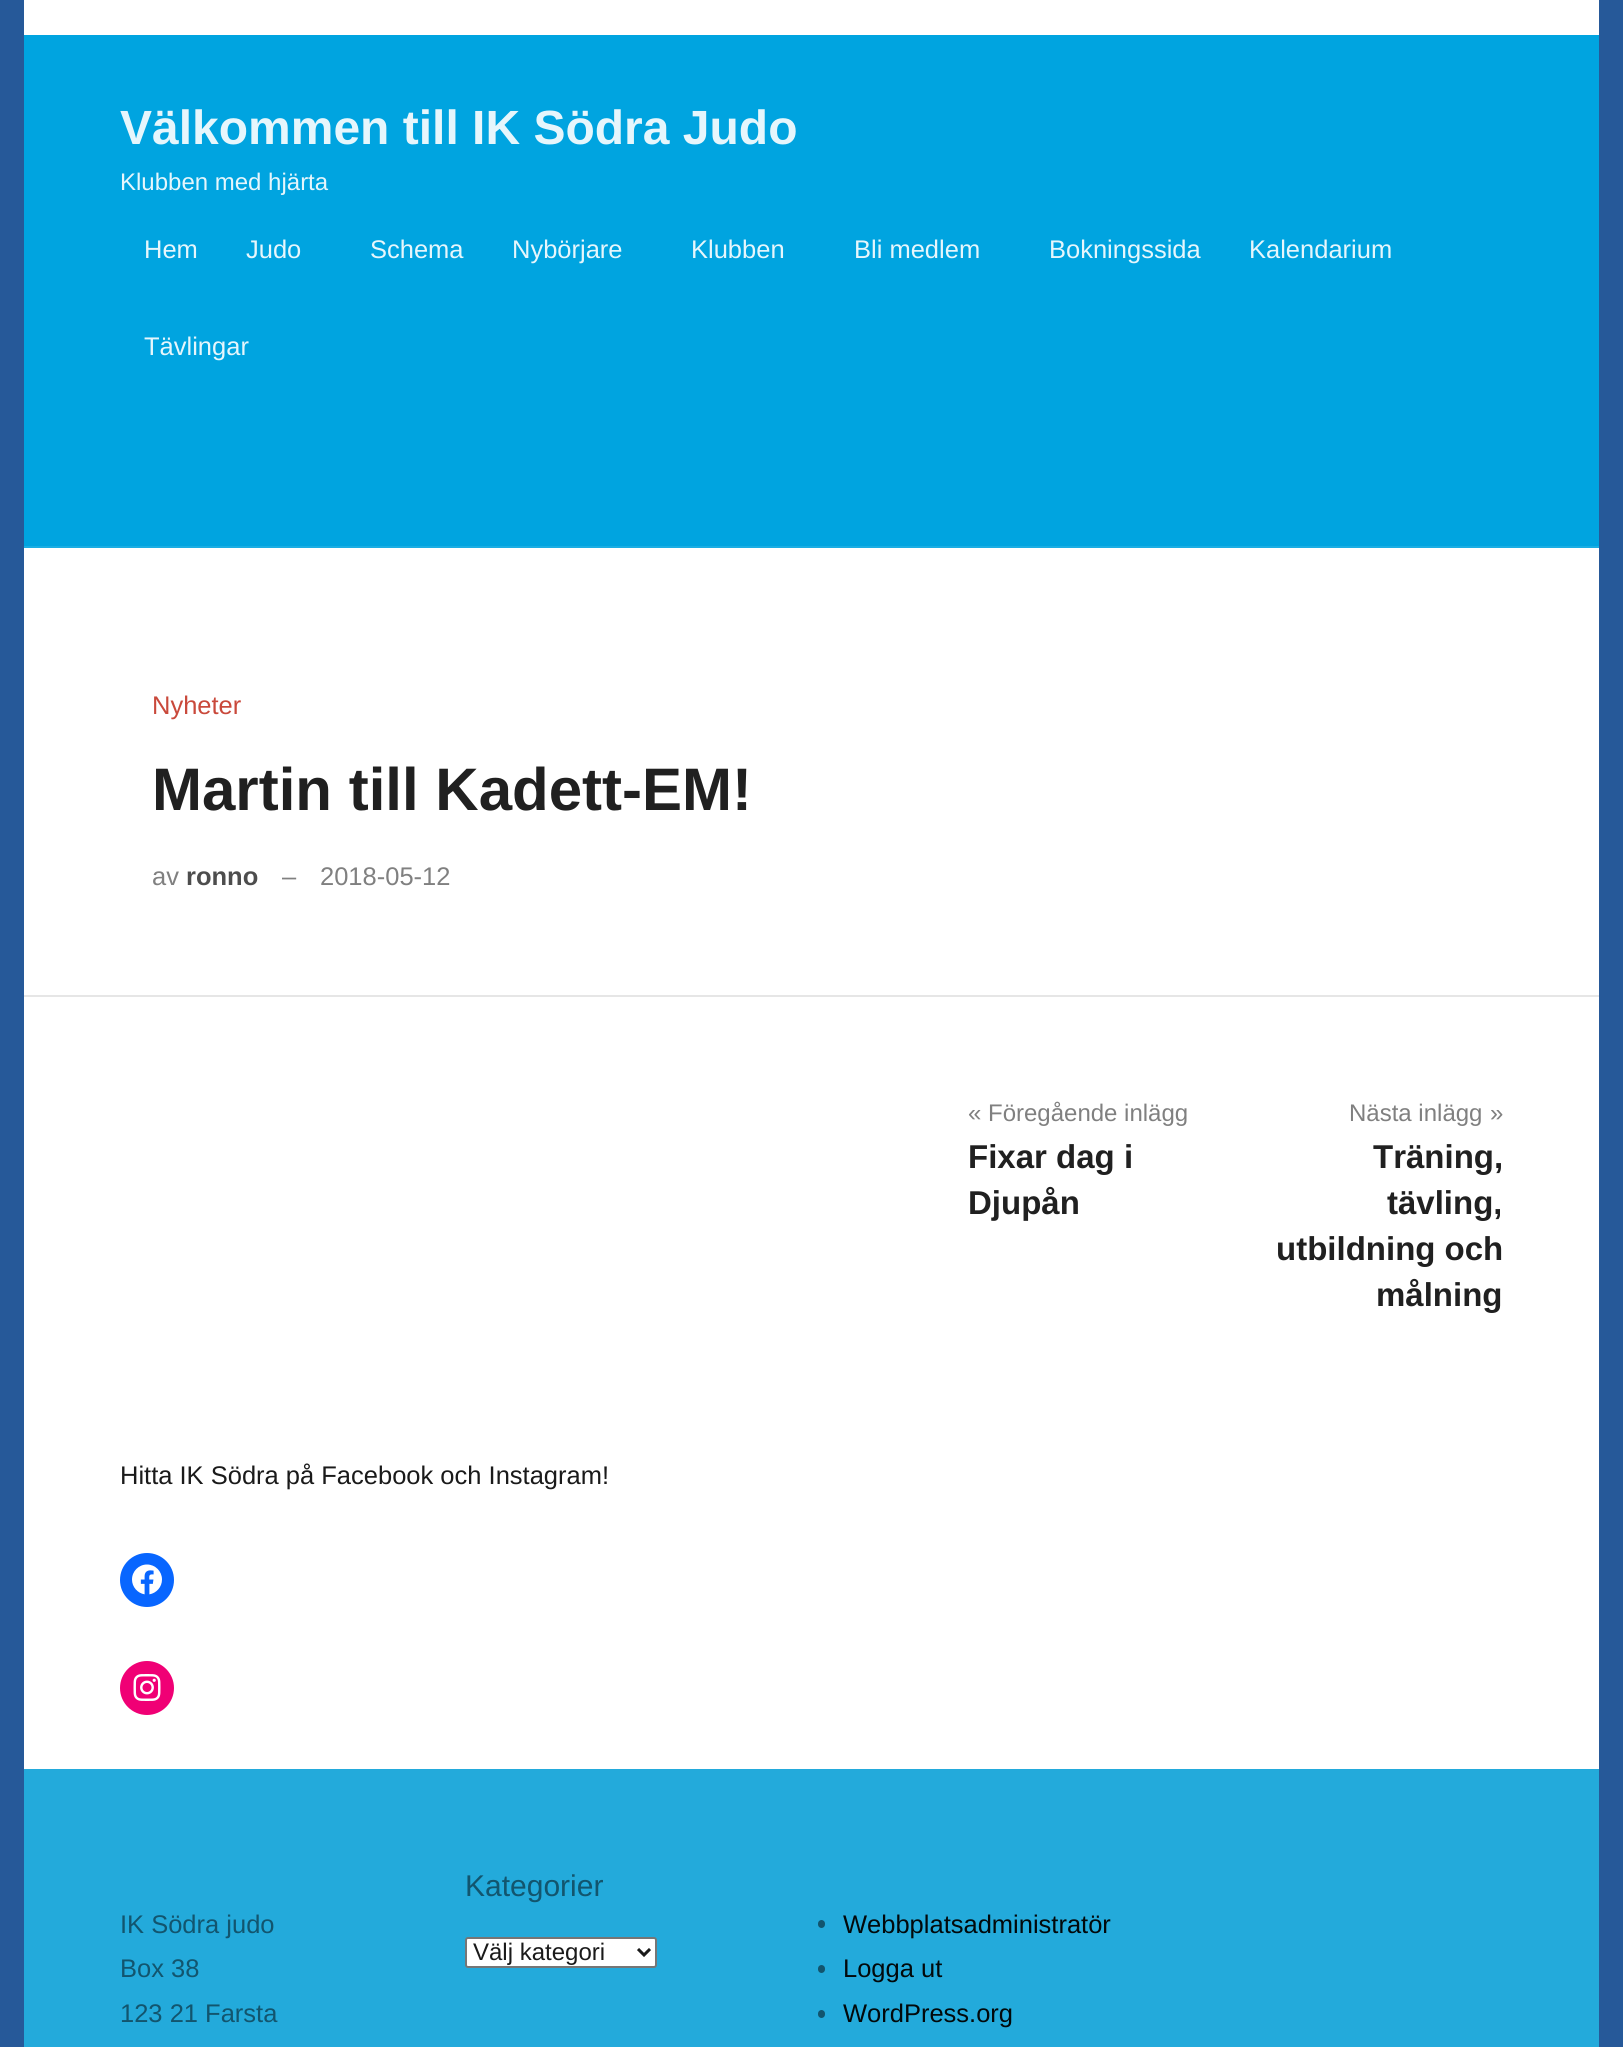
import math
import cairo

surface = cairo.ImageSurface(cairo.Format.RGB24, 1623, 2047)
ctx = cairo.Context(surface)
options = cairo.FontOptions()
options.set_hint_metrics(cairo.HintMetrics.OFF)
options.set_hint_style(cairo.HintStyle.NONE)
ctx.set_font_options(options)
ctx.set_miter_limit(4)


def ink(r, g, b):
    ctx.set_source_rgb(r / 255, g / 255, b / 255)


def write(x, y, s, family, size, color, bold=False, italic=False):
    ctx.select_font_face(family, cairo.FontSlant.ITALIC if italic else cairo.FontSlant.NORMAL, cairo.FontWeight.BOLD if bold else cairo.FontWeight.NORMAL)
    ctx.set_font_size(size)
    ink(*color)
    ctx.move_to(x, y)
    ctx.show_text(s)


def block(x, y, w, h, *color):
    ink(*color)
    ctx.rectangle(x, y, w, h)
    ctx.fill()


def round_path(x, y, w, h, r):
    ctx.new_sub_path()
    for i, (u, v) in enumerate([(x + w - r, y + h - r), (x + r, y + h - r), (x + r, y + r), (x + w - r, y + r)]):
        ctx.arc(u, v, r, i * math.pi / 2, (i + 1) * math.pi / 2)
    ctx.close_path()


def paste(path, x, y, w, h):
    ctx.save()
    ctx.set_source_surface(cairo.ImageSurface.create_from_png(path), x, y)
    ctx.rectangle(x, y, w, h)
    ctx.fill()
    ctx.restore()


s1 = dict(family="Liberation Sans", size=48, color=(230, 246, 252), bold=True)
s2 = dict(family="Liberation Sans", size=24, color=(230, 246, 252))
s3 = dict(family="Liberation Sans", size=25.5, color=(230, 246, 252))
s4 = dict(family="Liberation Sans", size=25.5, color=(201, 73, 59))
s5 = dict(family="Liberation Sans", size=60, color=(32, 32, 32), bold=True)
s6 = dict(family="Liberation Sans", size=25.5, color=(128, 128, 128))
s7 = dict(family="Liberation Sans", size=25.5, color=(77, 77, 77), bold=True)
s8 = dict(family="Liberation Sans", size=24, color=(128, 128, 128))
s9 = dict(family="Liberation Sans", size=33, color=(32, 32, 32), bold=True)
s10 = dict(family="Liberation Sans", size=25.5, color=(26, 26, 26))
s11 = dict(family="Liberation Sans", size=25.5, color=(18, 85, 110))
s12 = dict(family="Liberation Sans", size=30, color=(18, 85, 110))
s13 = dict(family="Liberation Sans", size=24, color=(26, 26, 26))
s14 = dict(family="Liberation Sans", size=25.5, color=(2, 9, 11))

ink(38, 89, 153)
ctx.paint()
block(24, 0, 1575, 1769, 255, 255, 255)
block(24, 35, 1575, 511, 0, 164, 224)
block(24, 546, 1575, 2, 26, 173, 227)
write(120, 144, "Välkommen till IK Södra Judo", **s1)
write(120, 190, "Klubben med hjärta", **s2)
write(144, 258, "Hem", **s3)
write(246, 258, "Judo", **s3)
write(370, 258, "Schema", **s3)
write(512, 258, "Nybörjare", **s3)
write(691, 258, "Klubben", **s3)
write(854, 258, "Bli medlem", **s3)
write(1049, 258, "Bokningssida", **s3)
write(1249, 258, "Kalendarium", **s3)
write(144, 355, "Tävlingar", **s3)
write(152, 714, "Nyheter", **s4)
write(152, 810, "Martin till Kadett-EM!", **s5)
write(152, 885, "av", **s6)
write(186, 885, "ronno", **s7)
write(282, 885, "–", **s6)
write(320, 885, "2018-05-12", **s6)
block(24, 995, 1575, 2, 230, 230, 230)
write(968, 1121, "«", **s8)
write(988, 1121, "Föregående inlägg", **s8)
write(968, 1168, "Fixar dag i", **s9)
write(968, 1214, "Djupån", **s9)
write(1349, 1121, "Nästa inlägg", **s8)
write(1490, 1121, "»", **s8)
write(1373, 1168, "Träning,", **s9)
write(1387, 1214, "tävling,", **s9)
write(1276, 1260, "utbildning och", **s9)
write(1376, 1306, "målning", **s9)
write(120, 1484, "Hitta IK Södra på Facebook och Instagram!", **s10)
ink(8, 102, 255)
ctx.new_path()
ctx.arc(147, 1580, 27, 0, 2 * math.pi)
ctx.fill()
paste("pic1.png", 132, 1564, 30, 31)
ink(240, 0, 117)
ctx.arc(147, 1688, 27, 0, 2 * math.pi)
ctx.fill()
paste("pic2.png", 133, 1674, 28, 27)
block(24, 1769, 1575, 278, 35, 170, 219)
write(120, 1933, "IK Södra judo", **s11)
write(120, 1977, "Box 38", **s11)
write(120, 2022, "123 21 Farsta", **s11)
write(465, 1896, "Kategorier", **s12)
ink(255, 255, 255)
round_path(466, 1938, 190, 29, 2)
ctx.fill_preserve()
ink(118, 118, 118)
ctx.stroke()
ctx.new_path()
ctx.move_to(638, 1949)
ctx.line_to(644, 1955)
ctx.line_to(650, 1949)
ink(26, 26, 26)
ctx.set_line_width(3)
ctx.stroke()
write(473, 1960, "Välj kategori", **s13)
ink(18, 85, 110)
round_path(818, 1920, 7, 8, 3.5)
ctx.fill()
write(843, 1933, "Webbplatsadministratör", **s14)
ink(18, 85, 110)
round_path(818, 1965, 7, 8, 3.5)
ctx.fill()
write(843, 1977, "Logga ut", **s14)
ink(18, 85, 110)
round_path(818, 2010, 7, 8, 3.5)
ctx.fill()
write(843, 2022, "WordPress.org", **s14)
surface.write_to_png("screenshot.png")
